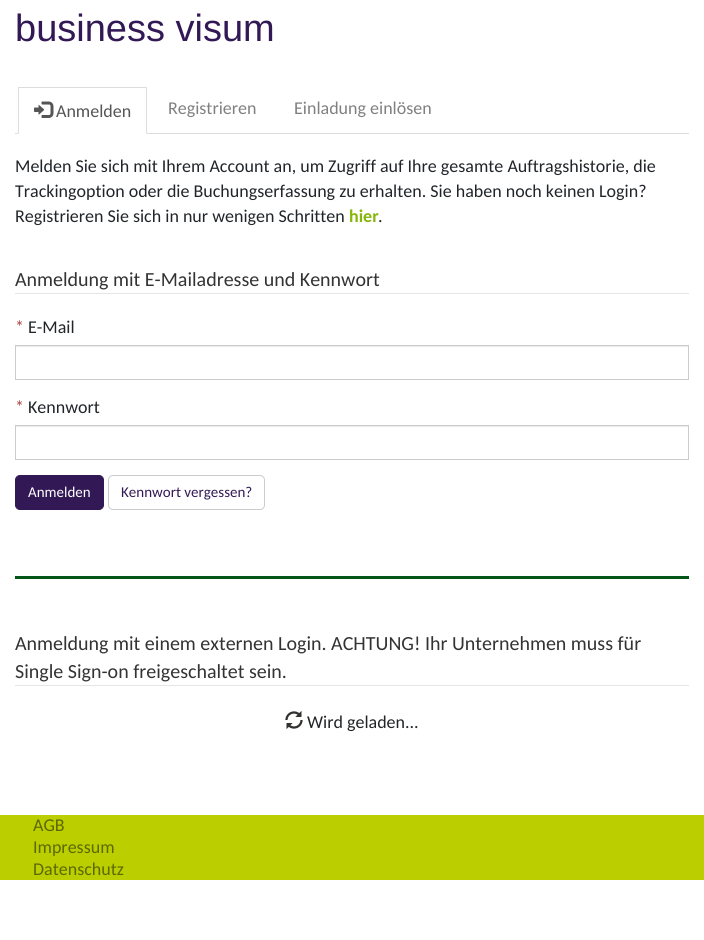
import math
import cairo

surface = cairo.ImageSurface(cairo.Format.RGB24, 704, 940)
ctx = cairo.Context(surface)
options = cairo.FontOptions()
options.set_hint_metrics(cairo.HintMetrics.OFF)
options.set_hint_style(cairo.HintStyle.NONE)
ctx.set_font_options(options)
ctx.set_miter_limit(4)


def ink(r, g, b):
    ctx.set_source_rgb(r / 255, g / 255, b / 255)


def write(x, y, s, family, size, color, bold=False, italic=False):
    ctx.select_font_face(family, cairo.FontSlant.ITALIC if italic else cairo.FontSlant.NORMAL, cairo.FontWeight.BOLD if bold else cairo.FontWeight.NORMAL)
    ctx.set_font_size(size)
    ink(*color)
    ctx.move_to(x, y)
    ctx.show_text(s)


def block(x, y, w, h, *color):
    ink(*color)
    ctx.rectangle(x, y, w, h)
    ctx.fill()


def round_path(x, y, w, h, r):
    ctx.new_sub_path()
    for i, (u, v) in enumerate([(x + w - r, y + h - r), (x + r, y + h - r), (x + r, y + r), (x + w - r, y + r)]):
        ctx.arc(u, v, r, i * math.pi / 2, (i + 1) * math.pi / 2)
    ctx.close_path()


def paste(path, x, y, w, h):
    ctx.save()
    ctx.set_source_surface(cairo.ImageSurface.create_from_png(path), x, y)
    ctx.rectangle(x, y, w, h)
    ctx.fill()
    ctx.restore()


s1 = dict(family="Liberation Sans", size=38, color=(50, 25, 85))
s2 = dict(family="Carlito", size=18, color=(85, 85, 85))
s3 = dict(family="Carlito", size=18, color=(128, 128, 128))
s4 = dict(family="Carlito", size=18, color=(33, 37, 41))
s5 = dict(family="Carlito", size=18, color=(133, 182, 8), bold=True)
s6 = dict(family="Carlito", size=20, color=(51, 51, 51))
s7 = dict(family="Carlito", size=18, color=(169, 68, 66))
s8 = dict(family="Carlito", size=15, color=(255, 255, 255))
s9 = dict(family="Carlito", size=15, color=(50, 25, 85))
s10 = dict(family="Carlito", size=18, color=(94, 104, 0))

ink(255, 255, 255)
ctx.paint()
write(15, 41, "business visum", **s1)
block(15, 133, 674, 1, 221, 221, 221)
block(18, 133, 129, 1, 255, 255, 255)
block(18, 87, 129, 1, 221, 221, 221)
ctx.new_path()
ctx.move_to(147, 87)
ctx.line_to(147, 134)
ctx.line_to(146, 133)
ctx.line_to(146, 88)
ctx.close_path()
ctx.fill()
ctx.new_path()
ctx.move_to(18, 134)
ctx.line_to(18, 87)
ctx.line_to(19, 88)
ctx.line_to(19, 133)
ctx.close_path()
ctx.fill()
paste("pic1.png", 34, 101, 20, 17)
write(56, 117, "Anmelden", **s2)
write(168, 114, "Registrieren", **s3)
write(294, 114, "Einladung einlösen", **s3)
write(15, 172, "Melden Sie sich mit Ihrem Account an, um Zugriff auf Ihre gesamte Auftragshistorie, die", **s4)
write(15, 197, "Trackingoption oder die Buchungserfassung zu erhalten. Sie haben noch keinen Login?", **s4)
write(15, 222, "Registrieren Sie sich in nur wenigen Schritten", **s4)
write(349, 222, "hier", **s5)
write(378, 222, ".", **s4)
block(15, 293, 674, 1, 229, 229, 229)
write(15, 286, "Anmeldung mit E-Mailadresse und Kennwort", **s6)
write(15, 333, "*", **s7)
write(28, 333, "E-Mail", **s4)
block(16, 346, 672, 1, 236, 236, 236)
ctx.rectangle(15.5, 345.5, 673, 34)
ink(204, 204, 204)
ctx.set_line_width(1)
ctx.stroke()
write(15, 413, "*", **s7)
write(28, 413, "Kennwort", **s4)
block(16, 426, 672, 1, 236, 236, 236)
ctx.rectangle(15.5, 425.5, 673, 34)
ink(204, 204, 204)
ctx.stroke()
ink(50, 25, 85)
round_path(15.5, 475.5, 88, 34, 4.5)
ctx.fill_preserve()
ctx.stroke()
write(28, 497, "Anmelden", **s8)
round_path(108.5, 475.5, 156, 34, 4.5)
ink(204, 204, 204)
ctx.stroke()
write(121, 497, "Kennwort vergessen?", **s9)
block(15, 576, 674, 3, 0, 85, 25)
block(15, 685, 674, 1, 229, 229, 229)
write(15, 650, "Anmeldung mit einem externen Login. ACHTUNG! Ihr Unternehmen muss für", **s6)
write(15, 678, "Single Sign-on freigeschaltet sein.", **s6)
paste("pic2.png", 285, 711, 18, 18)
write(307, 728, "Wird geladen...", **s4)
block(0, 815, 704, 65, 187, 207, 0)
write(33, 831, "AGB", **s10)
write(33, 853, "Impressum", **s10)
write(33, 875, "Datenschutz", **s10)
surface.write_to_png("screenshot.png")
